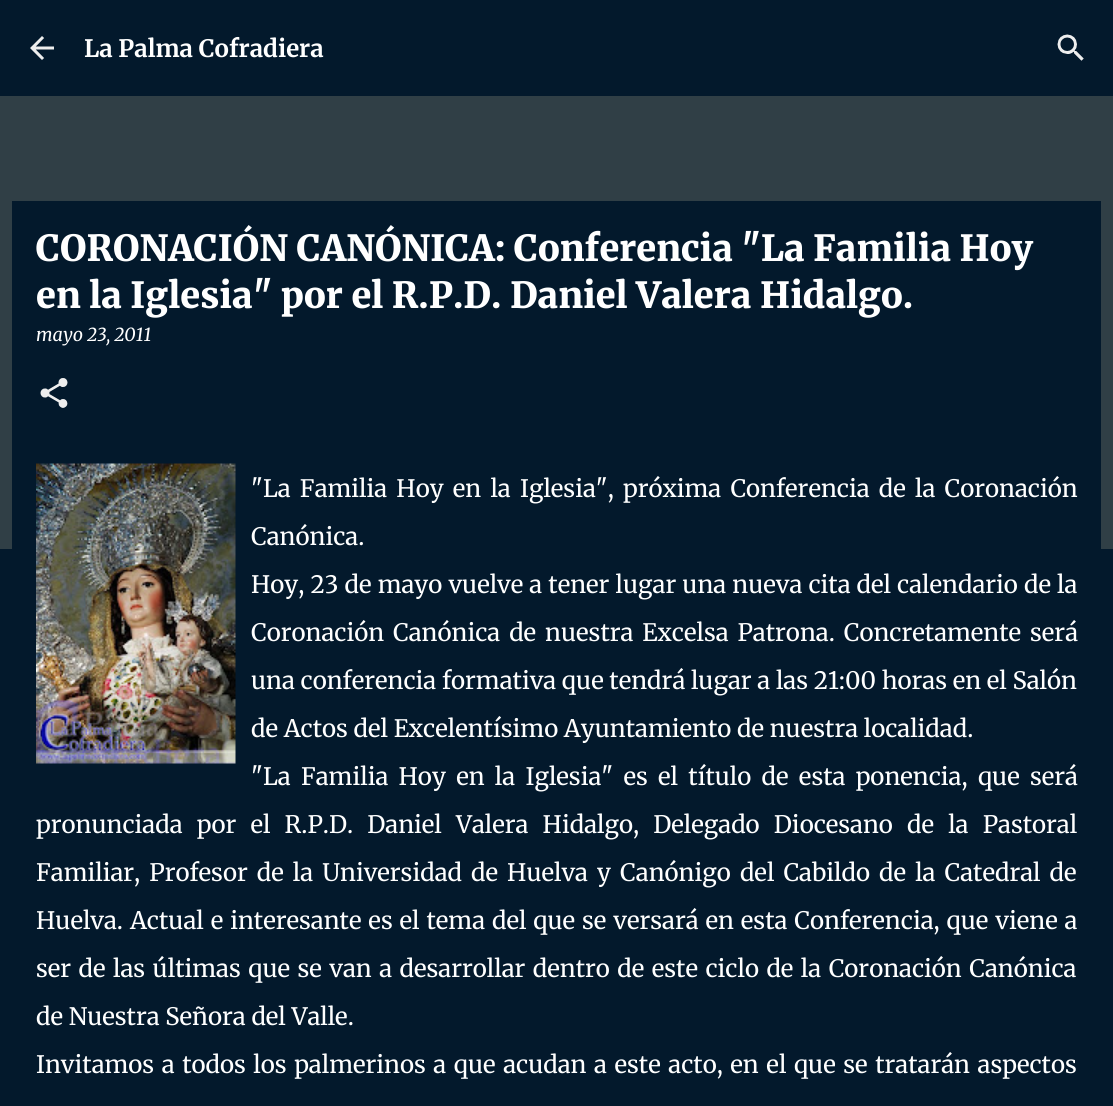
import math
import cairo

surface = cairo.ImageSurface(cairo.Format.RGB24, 1113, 1106)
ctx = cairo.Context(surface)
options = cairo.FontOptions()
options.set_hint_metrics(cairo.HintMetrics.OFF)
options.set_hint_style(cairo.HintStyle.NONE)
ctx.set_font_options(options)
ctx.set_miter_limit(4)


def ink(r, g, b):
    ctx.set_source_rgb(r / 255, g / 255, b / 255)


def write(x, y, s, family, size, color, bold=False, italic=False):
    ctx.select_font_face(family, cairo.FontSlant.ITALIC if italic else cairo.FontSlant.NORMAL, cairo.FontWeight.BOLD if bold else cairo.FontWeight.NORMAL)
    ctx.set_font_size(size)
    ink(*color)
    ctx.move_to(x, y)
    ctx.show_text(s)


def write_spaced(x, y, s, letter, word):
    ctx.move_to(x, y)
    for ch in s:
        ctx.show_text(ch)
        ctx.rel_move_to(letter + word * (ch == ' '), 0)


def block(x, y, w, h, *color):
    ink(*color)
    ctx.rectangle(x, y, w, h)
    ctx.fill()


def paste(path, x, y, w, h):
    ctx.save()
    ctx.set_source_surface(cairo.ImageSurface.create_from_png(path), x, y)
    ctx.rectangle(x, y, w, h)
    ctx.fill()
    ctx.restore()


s1 = dict(family="Merriweather", size=24, color=(255, 255, 255), bold=True)
s2 = dict(family="Merriweather Black", size=36, color=(255, 255, 255))
s3 = dict(family="Merriweather", size=18, color=(255, 255, 255), italic=True)
s4 = dict(family="Merriweather", size=24, color=(255, 255, 255))

ink(48, 63, 70)
ctx.paint()
block(0, 0, 1113, 96, 3, 25, 44)
paste("pic1.png", 30, 36, 24, 24)
write(84, 57, "La Palma Cofradiera", **s1)
paste("pic2.png", 1057, 34, 27, 27)
block(0, 549, 1113, 557, 3, 25, 44)
block(12, 201, 1089, 348, 3, 25, 44)
write(36, 261, "CORONACIÓN CANÓNICA: Conferencia \"La Familia Hoy", **s2)
write(36, 308, "en la Iglesia\" por el R.P.D. Daniel Valera Hidalgo.", **s2)
write(36, 341, "mayo 23, 2011", **s3)
paste("pic3.png", 40, 378, 28, 30)
paste("pic4.png", 36, 463, 200, 301)
ctx.select_font_face("Merriweather")
ctx.set_font_size(24)
write_spaced(251, 497, "\"La Familia Hoy en la Iglesia\", próxima Conferencia de la Coronación", 0, 3.5)
write(251, 545, "Canónica.", **s4)
write_spaced(251, 593, "Hoy, 23 de mayo vuelve a tener lugar una nueva cita del calendario de la", 0, 0.4)
write_spaced(251, 641, "Coronación Canónica de nuestra Excelsa Patrona. Concretamente será", 0, 3.25)
write(251, 689, "una conferencia formativa que tendrá lugar a las 21:00 horas en el Salón", **s4)
write(251, 737, "de Actos del Excelentísimo Ayuntamiento de nuestra localidad.", **s4)
write_spaced(251, 785, "\"La Familia Hoy en la Iglesia\" es el título de esta ponencia, que será", 0, 4.6)
write_spaced(36, 833, "pronunciada por el R.P.D. Daniel Valera Hidalgo, Delegado Diocesano de la Pastoral", 0, 8.5)
write_spaced(36, 881, "Familiar, Profesor de la Universidad de Huelva y Canónigo del Cabildo de la Catedral de", 0, 3.4)
write_spaced(36, 929, "Huelva. Actual e interesante es el tema del que se versará en esta Conferencia, que viene a", 0, 1.25)
write_spaced(36, 977, "ser de las últimas que se van a desarrollar dentro de este ciclo de la Coronación Canónica", 0, 1.8)
write(36, 1025, "de Nuestra Señora del Valle.", **s4)
write_spaced(36, 1073, "Invitamos a todos los palmerinos a que acudan a este acto, en el que se tratarán aspectos", 0, 1.9)
surface.write_to_png("screenshot.png")
